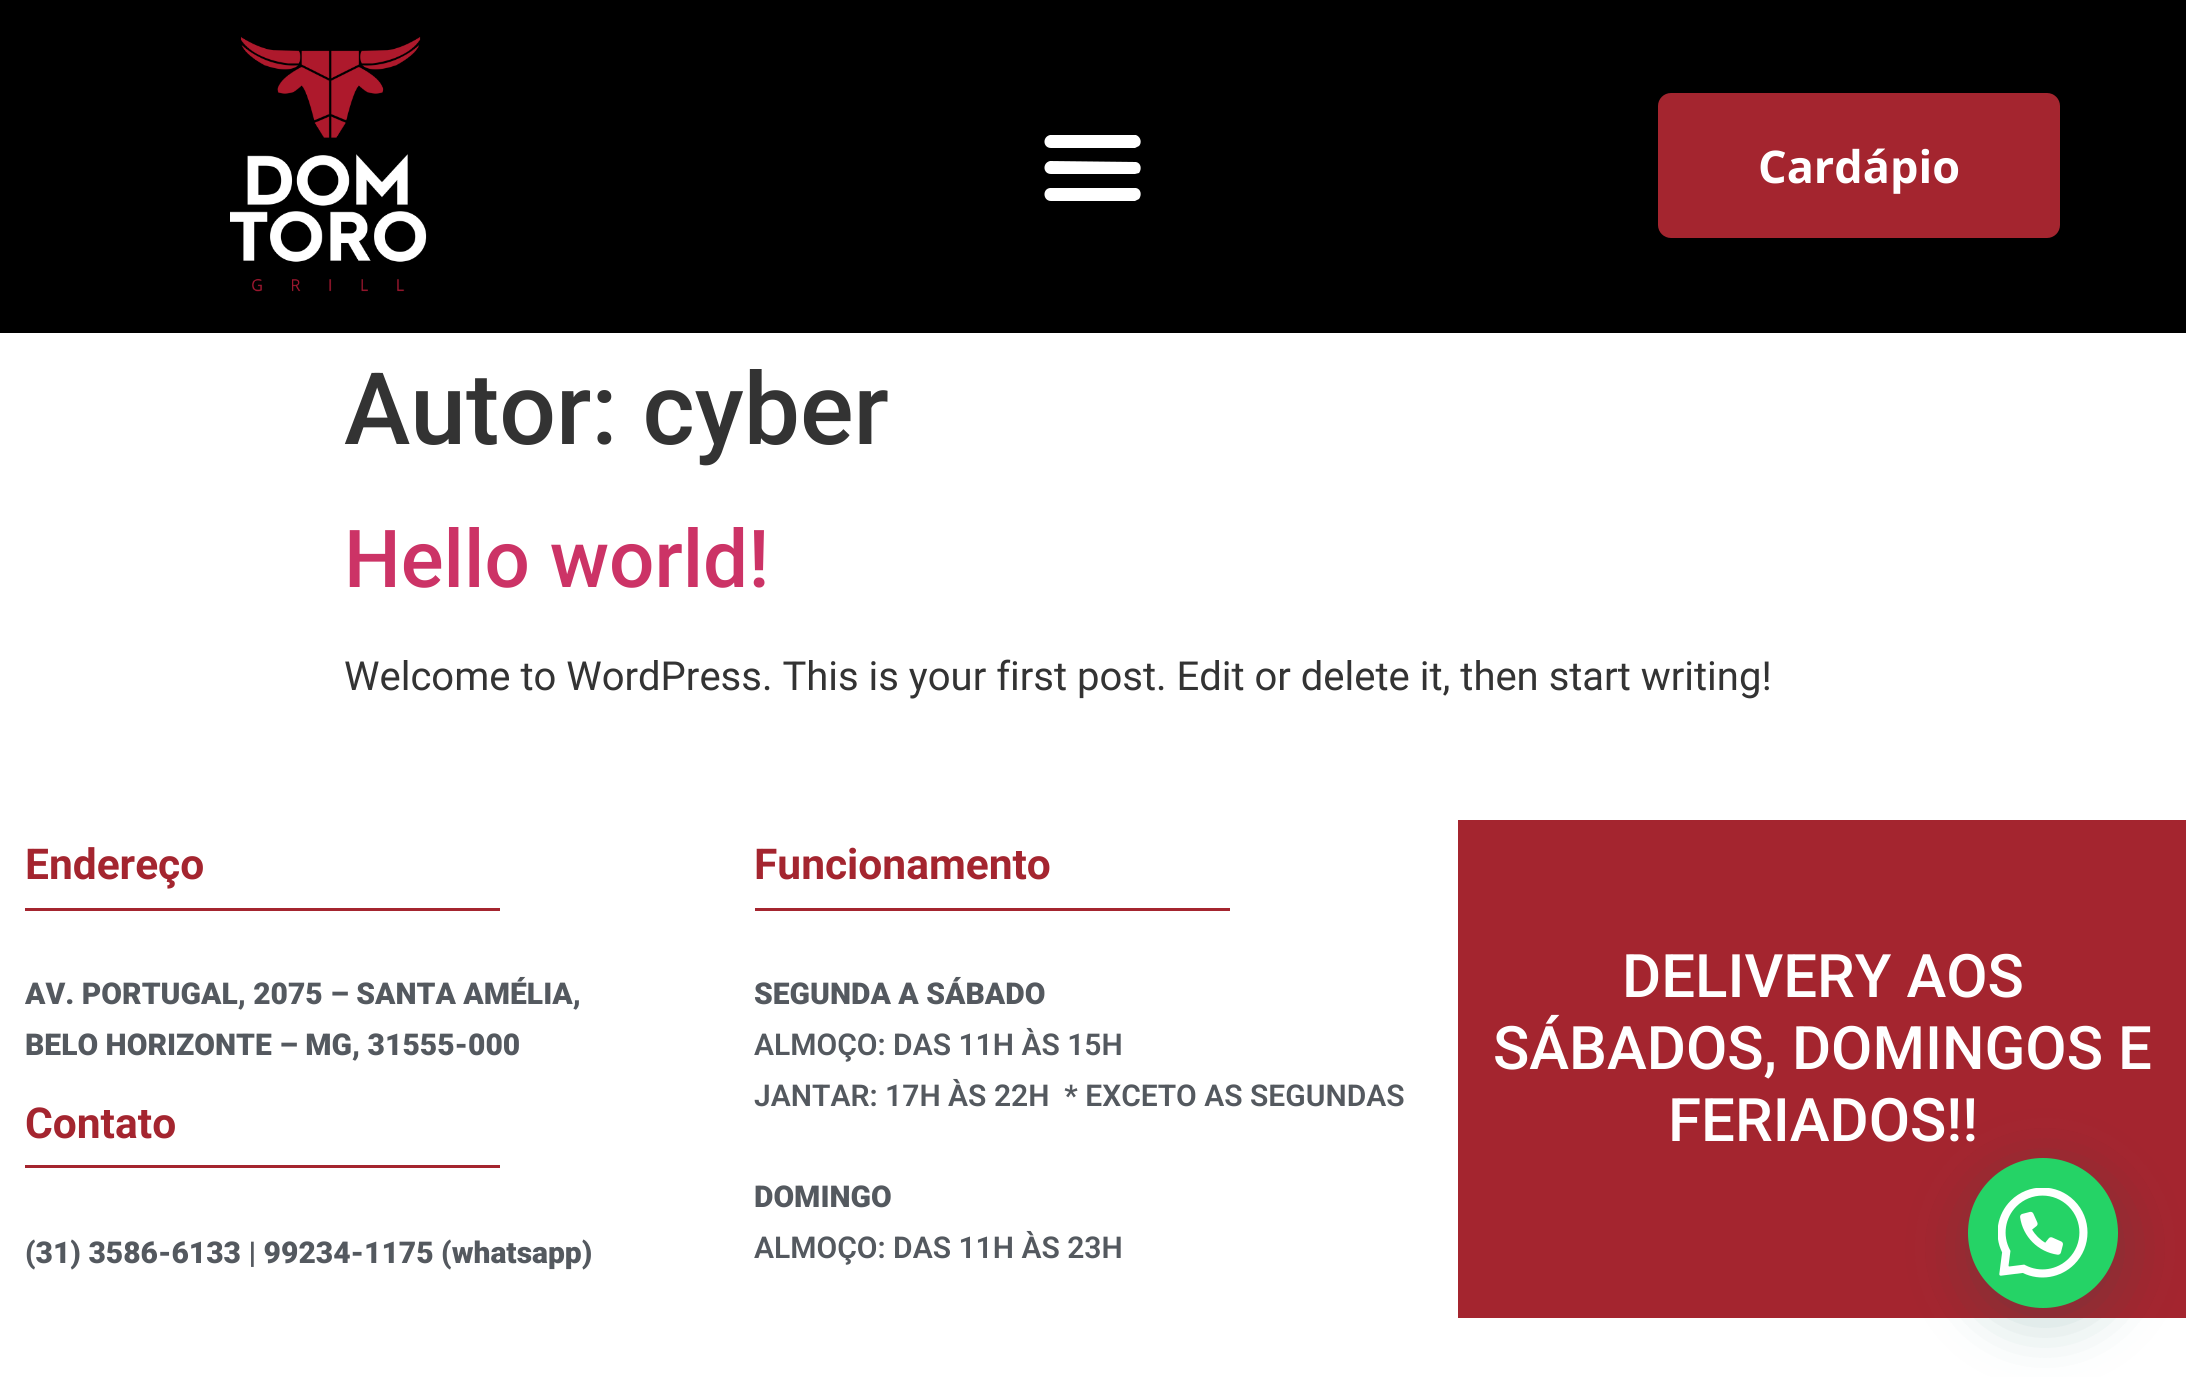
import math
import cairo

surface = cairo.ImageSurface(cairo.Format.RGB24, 2186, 1377)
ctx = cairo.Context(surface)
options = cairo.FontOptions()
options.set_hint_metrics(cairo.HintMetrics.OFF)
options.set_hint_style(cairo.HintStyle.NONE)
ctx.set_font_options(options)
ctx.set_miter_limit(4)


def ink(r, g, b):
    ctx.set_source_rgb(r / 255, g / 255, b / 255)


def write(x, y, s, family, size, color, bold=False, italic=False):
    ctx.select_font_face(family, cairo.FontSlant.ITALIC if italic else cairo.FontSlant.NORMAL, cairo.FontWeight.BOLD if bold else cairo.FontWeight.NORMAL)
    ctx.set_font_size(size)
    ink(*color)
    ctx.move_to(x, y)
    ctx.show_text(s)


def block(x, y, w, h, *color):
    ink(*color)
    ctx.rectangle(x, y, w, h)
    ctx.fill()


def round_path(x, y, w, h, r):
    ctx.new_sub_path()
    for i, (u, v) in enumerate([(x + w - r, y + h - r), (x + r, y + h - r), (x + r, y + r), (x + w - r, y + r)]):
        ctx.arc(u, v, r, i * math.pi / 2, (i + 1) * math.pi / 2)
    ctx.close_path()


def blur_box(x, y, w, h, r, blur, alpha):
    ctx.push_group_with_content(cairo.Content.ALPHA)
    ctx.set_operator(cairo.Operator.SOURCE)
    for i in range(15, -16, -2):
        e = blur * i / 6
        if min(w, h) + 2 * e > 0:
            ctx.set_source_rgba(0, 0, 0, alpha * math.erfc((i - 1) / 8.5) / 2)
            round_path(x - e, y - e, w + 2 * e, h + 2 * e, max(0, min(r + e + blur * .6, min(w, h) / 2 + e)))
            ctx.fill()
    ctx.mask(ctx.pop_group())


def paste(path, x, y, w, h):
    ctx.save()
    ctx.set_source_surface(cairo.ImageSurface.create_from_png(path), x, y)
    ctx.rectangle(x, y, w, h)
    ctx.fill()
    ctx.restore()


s1 = dict(family="Open Sans", size=45, color=(255, 255, 255), bold=True)
s2 = dict(family="Roboto Medium", size=100, color=(51, 51, 51))
s3 = dict(family="Roboto Medium", size=80, color=(204, 51, 102))
s4 = dict(family="Roboto", size=40, color=(51, 51, 51))
s5 = dict(family="Roboto", size=42.5, color=(164, 37, 47), bold=True)
s6 = dict(family="Roboto Black", size=30, color=(84, 89, 95))
s7 = dict(family="Roboto SemiBold", size=30, color=(84, 89, 95))
s8 = dict(family="Roboto Medium", size=60, color=(255, 255, 255))

ink(255, 255, 255)
ctx.paint()
block(0, 0, 2186, 333, 0, 0, 0)
paste("pic1.png", 230, 36, 197, 256)
ink(255, 255, 255)
ctx.new_path()
ctx.move_to(1051, 148)
ctx.line_to(1135, 148)
ctx.line_to(1139, 146)
ctx.curve_to(1142, 143, 1141, 137, 1136, 135)
ctx.line_to(1050, 135)
ctx.curve_to(1042, 137, 1043, 148, 1051, 148)
ctx.close_path()
ctx.move_to(1051, 174)
ctx.line_to(1135, 174)
ctx.line_to(1139, 173)
ctx.curve_to(1142, 169, 1141, 163, 1136, 162)
ctx.line_to(1050, 161)
ctx.curve_to(1042, 163, 1043, 174, 1051, 174)
ctx.close_path()
ctx.move_to(1051, 201)
ctx.line_to(1135, 201)
ctx.line_to(1139, 199)
ctx.curve_to(1142, 195, 1141, 189, 1136, 188)
ctx.line_to(1050, 188)
ctx.curve_to(1042, 189, 1043, 201, 1051, 201)
ctx.close_path()
ctx.fill()
ink(164, 37, 47)
round_path(1658, 93, 402, 145, 13)
ctx.fill()
write(1758, 183, "Cardápio", **s1)
write(344, 444, "Autor: cyber", **s2)
write(344, 587, "Hello world!", **s3)
write(344, 690, "Welcome to WordPress. This is your first post. Edit or delete it, then start writing!", **s4)
write(25, 879, "Endereço", **s5)
block(25, 908, 475, 3, 164, 37, 47)
write(25, 1004, "AV. PORTUGAL, 2075 – SANTA AMÉLIA,", **s6)
write(25, 1055, "BELO HORIZONTE – MG, 31555-000", **s6)
write(25, 1138, "Contato", **s5)
block(25, 1165, 475, 3, 164, 37, 47)
write(25, 1263, "(31) 3586-6133 | 99234-1175 (whatsapp)", **s6)
write(754, 879, "Funcionamento", **s5)
block(755, 908, 475, 3, 164, 37, 47)
write(754, 1004, "SEGUNDA A SÁBADO", **s6)
write(754, 1055, "ALMOÇO: DAS 11H ÀS 15H", **s7)
write(754, 1106, "JANTAR: 17H ÀS 22H  * EXCETO AS SEGUNDAS", **s7)
write(754, 1207, "DOMINGO", **s6)
write(754, 1258, "ALMOÇO: DAS 11H ÀS 23H", **s7)
block(1458, 820, 728, 498, 164, 37, 47)
write(1622, 997, "DELIVERY AOS", **s8)
write(1493, 1069, "SÁBADOS, DOMINGOS E", **s8)
write(1668, 1141, "FERIADOS!!", **s8)
ink(7, 94, 84)
blur_box(1970, 1173, 150, 150, 75, 30, 0.24)
ink(37, 211, 102)
ctx.arc(2043, 1233, 75, 0, 2 * math.pi)
ctx.fill()
paste("pic2.png", 1998, 1188, 90, 90)
surface.write_to_png("screenshot.png")
